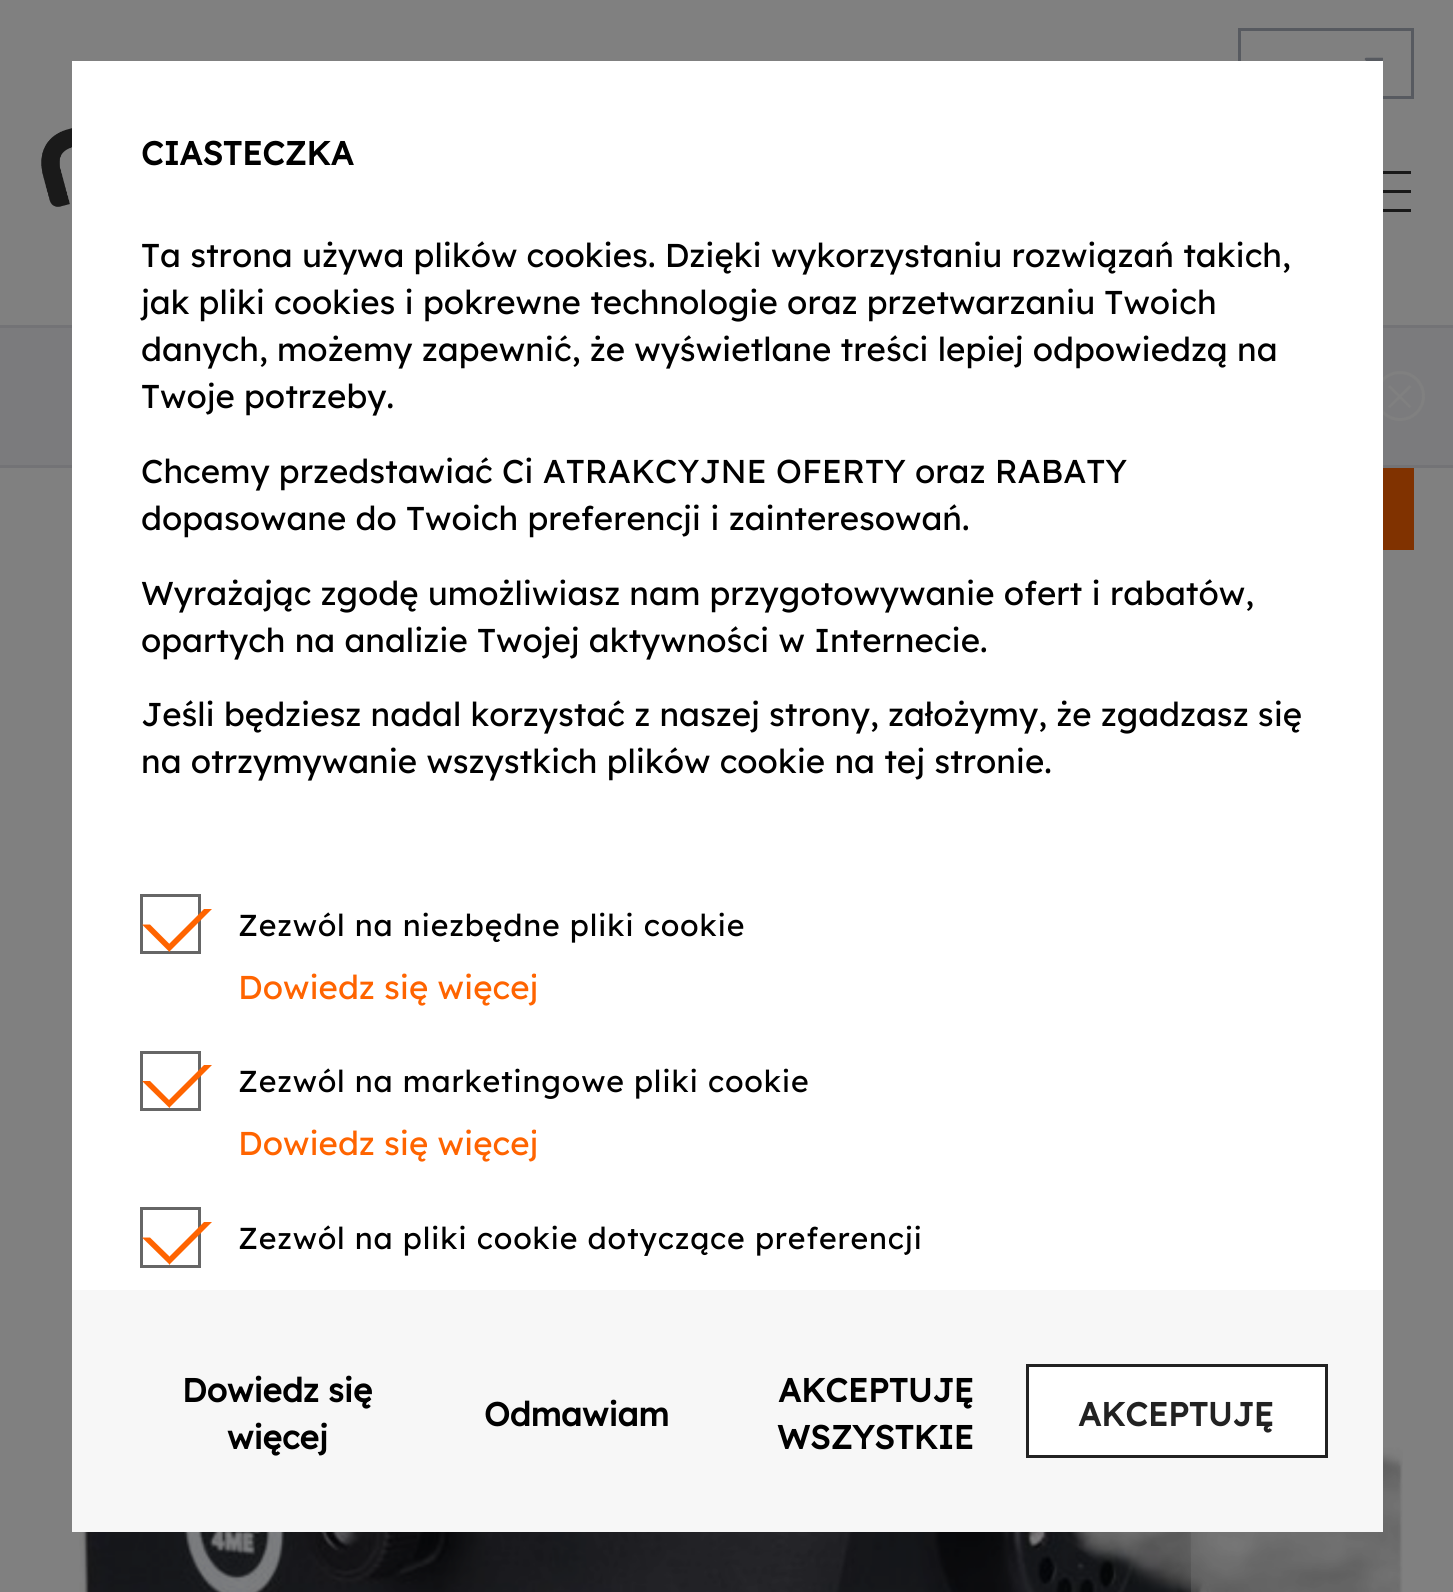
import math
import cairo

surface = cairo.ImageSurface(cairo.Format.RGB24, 1453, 1592)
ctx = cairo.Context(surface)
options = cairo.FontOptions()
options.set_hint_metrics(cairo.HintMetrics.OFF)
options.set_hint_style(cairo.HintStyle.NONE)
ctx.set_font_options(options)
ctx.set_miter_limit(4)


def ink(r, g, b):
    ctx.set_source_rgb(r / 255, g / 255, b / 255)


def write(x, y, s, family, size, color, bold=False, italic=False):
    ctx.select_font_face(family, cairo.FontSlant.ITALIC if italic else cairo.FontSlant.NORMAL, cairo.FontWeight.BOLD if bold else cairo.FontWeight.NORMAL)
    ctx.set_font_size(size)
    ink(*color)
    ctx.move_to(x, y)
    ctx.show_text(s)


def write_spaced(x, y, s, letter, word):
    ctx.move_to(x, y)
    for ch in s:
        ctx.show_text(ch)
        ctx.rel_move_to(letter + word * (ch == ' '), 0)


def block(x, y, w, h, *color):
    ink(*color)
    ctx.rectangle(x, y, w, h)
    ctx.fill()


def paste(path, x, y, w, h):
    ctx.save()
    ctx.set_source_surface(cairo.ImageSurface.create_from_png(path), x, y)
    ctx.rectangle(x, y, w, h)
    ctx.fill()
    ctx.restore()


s1 = dict(family="Lexend Deca", size=33, color=(0, 0, 0), bold=True)
s2 = dict(family="Lexend Deca", size=33, color=(0, 0, 0))
s3 = dict(family="Lexend Deca", size=33, color=(255, 100, 0))
s4 = dict(family="Lexend Deca", size=33, color=(34, 34, 34), bold=True)

ink(128, 128, 128)
ctx.paint()
ctx.rectangle(1239.5, 29.5, 173, 68)
ink(87, 90, 96)
ctx.set_line_width(3)
ctx.stroke()
paste("pic1.png", 1364, 57, 19, 4)
paste("pic2.png", 41, 128, 31, 79)
block(1383, 171, 28, 3, 25, 25, 25)
block(1383, 190, 28, 3, 25, 25, 25)
block(1383, 209, 28, 3, 25, 25, 25)
block(0, 328, 1453, 137, 123, 123, 125)
block(0, 325, 1453, 3, 115, 115, 118)
block(0, 465, 1453, 3, 115, 115, 118)
ctx.arc(1400, 396, 23.5, 0, 2 * math.pi)
ink(128, 128, 128)
ctx.stroke()
ctx.new_path()
ctx.move_to(1409.5, 385)
ctx.line_to(1411.5, 387)
ctx.line_to(1390, 408)
ctx.line_to(1388, 406.5)
ctx.close_path()
ctx.fill()
ctx.new_path()
ctx.move_to(1388, 387)
ctx.line_to(1390, 385)
ctx.line_to(1411.5, 406.5)
ctx.line_to(1409.5, 408)
ctx.close_path()
ctx.fill()
block(1383, 468, 31, 82, 128, 50, 0)
paste("pic3.png", 79, 550, 1324, 1042)
ctx.set_source_rgba(0.502, 0.502, 0.502, 0.03)
ctx.rectangle(85, 625, 179, 967)
ctx.fill()
ctx.set_source_rgba(0.502, 0.502, 0.502, 0.3)
ctx.rectangle(1191, 550, 210, 1042)
ctx.fill()
block(72, 61, 1311, 1229, 255, 255, 255)
write(141, 165, "CIASTECZKA", **s1)
write(141, 267, "Ta strona używa plików cookies. Dzięki wykorzystaniu rozwiązań takich,", **s2)
write(141, 314, "jak pliki cookies i pokrewne technologie oraz przetwarzaniu Twoich", **s2)
write(141, 361, "danych, możemy zapewnić, że wyświetlane treści lepiej odpowiedzą na", **s2)
write(141, 408, "Twoje potrzeby.", **s2)
write(141, 483, "Chcemy przedstawiać Ci ATRAKCYJNE OFERTY oraz RABATY", **s2)
write(141, 530, "dopasowane do Twoich preferencji i zainteresowań.", **s2)
write(141, 605, "Wyrażając zgodę umożliwiasz nam przygotowywanie ofert i rabatów,", **s2)
write(141, 652, "opartych na analizie Twojej aktywności w Internecie.", **s2)
write(141, 726, "Jeśli będziesz nadal korzystać z naszej strony, założymy, że zgadzasz się", **s2)
write(141, 773, "na otrzymywanie wszystkich plików cookie na tej stronie.", **s2)
ctx.rectangle(141.5, 895.5, 58, 57)
ink(102, 102, 102)
ctx.stroke()
ink(255, 100, 0)
ctx.new_path()
ctx.move_to(212, 909)
ctx.line_to(169, 952)
ctx.line_to(169, 944)
ctx.line_to(204, 909)
ctx.close_path()
ctx.fill()
ctx.new_path()
ctx.move_to(169.5, 952)
ctx.line_to(142, 924.5)
ctx.line_to(150, 924.5)
ctx.line_to(169.5, 944)
ctx.close_path()
ctx.fill()
ctx.set_font_size(30.25)
ink(0, 0, 0)
write_spaced(238, 936, "Zezwól na niezbędne pliki cookie", 0.8, 0)
write(238, 999, "Dowiedz się więcej", **s3)
ctx.rectangle(141.5, 1052.5, 58, 57)
ink(102, 102, 102)
ctx.stroke()
ink(255, 100, 0)
ctx.new_path()
ctx.move_to(212, 1065)
ctx.line_to(169, 1108)
ctx.line_to(169, 1100)
ctx.line_to(204, 1065)
ctx.close_path()
ctx.fill()
ctx.new_path()
ctx.move_to(169.5, 1108)
ctx.line_to(142, 1081)
ctx.line_to(150, 1081)
ctx.line_to(169.5, 1100.5)
ctx.close_path()
ctx.fill()
ctx.set_font_size(30.25)
ink(0, 0, 0)
write_spaced(238, 1092, "Zezwól na marketingowe pliki cookie", 0.8, 0)
write(238, 1155, "Dowiedz się więcej", **s3)
ctx.rectangle(141.5, 1208.5, 58, 58)
ink(102, 102, 102)
ctx.stroke()
ink(255, 100, 0)
ctx.new_path()
ctx.move_to(212, 1222)
ctx.line_to(169, 1265)
ctx.line_to(169, 1257)
ctx.line_to(204, 1222)
ctx.close_path()
ctx.fill()
ctx.new_path()
ctx.move_to(169.5, 1264.5)
ctx.line_to(142, 1237.5)
ctx.line_to(150, 1237.5)
ctx.line_to(169.5, 1256.5)
ctx.close_path()
ctx.fill()
ctx.set_font_size(30.25)
ink(0, 0, 0)
write_spaced(238, 1249, "Zezwól na pliki cookie dotyczące preferencji", 0.8, 0)
block(72, 1290, 1311, 242, 247, 247, 247)
write(182, 1402, "Dowiedz się", **s1)
write(227, 1449, "więcej", **s1)
write(484, 1426, "Odmawiam", **s1)
write(778, 1402, "AKCEPTUJĘ", **s1)
write(777, 1449, "WSZYSTKIE", **s1)
ink(255, 255, 255)
ctx.rectangle(1027.5, 1365.5, 299, 91)
ctx.fill_preserve()
ink(34, 34, 34)
ctx.stroke()
write(1078, 1426, "AKCEPTUJĘ", **s4)
surface.write_to_png("screenshot.png")
